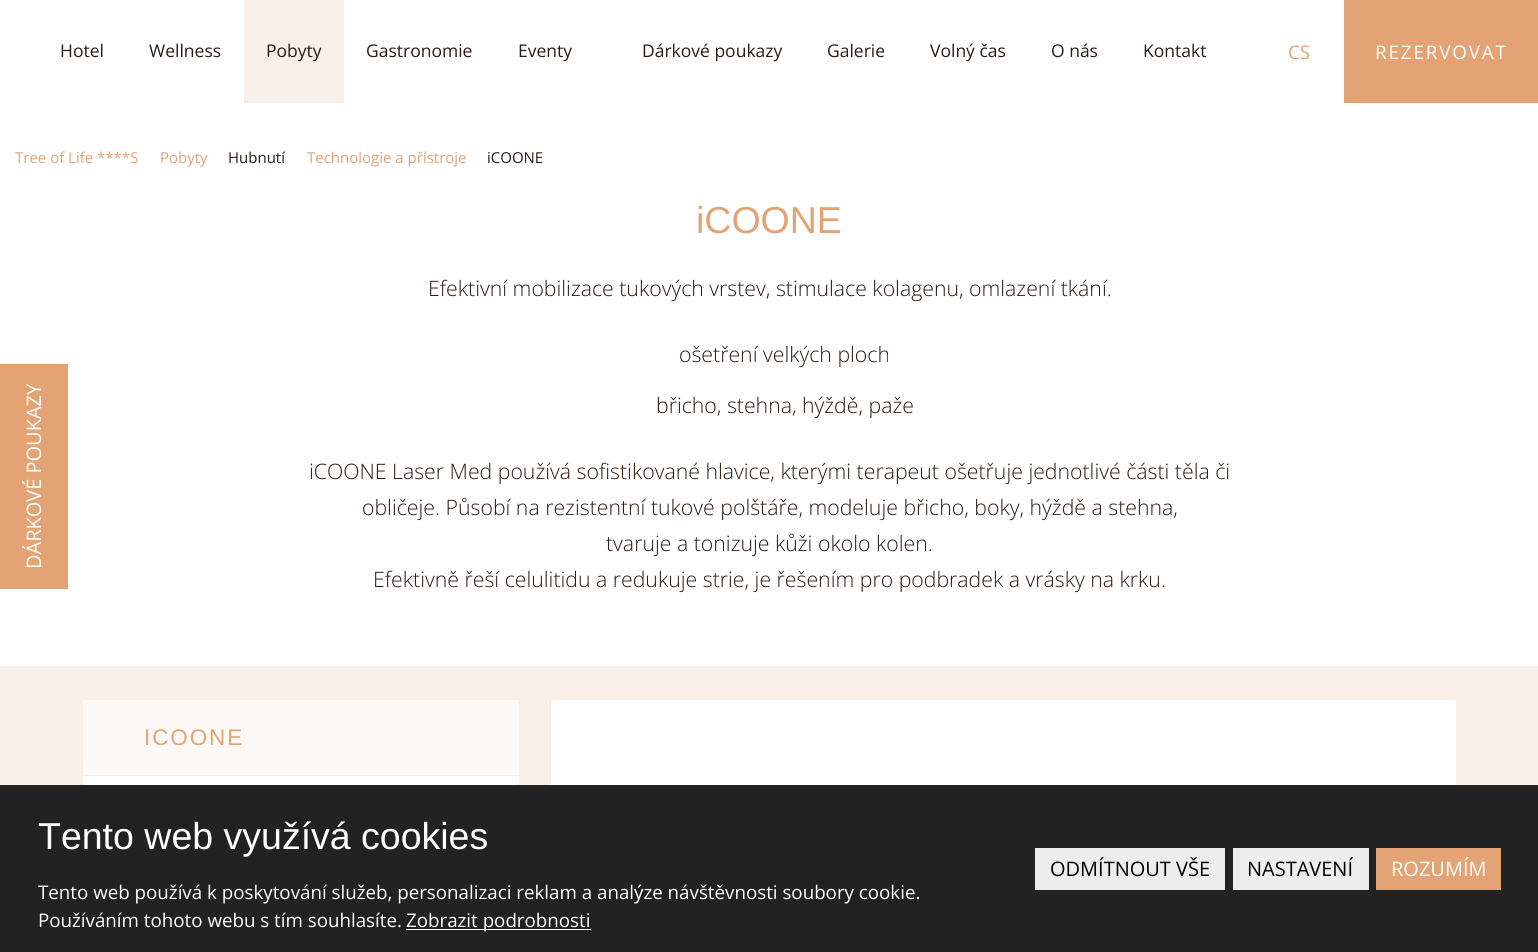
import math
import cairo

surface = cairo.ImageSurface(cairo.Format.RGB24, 1538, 952)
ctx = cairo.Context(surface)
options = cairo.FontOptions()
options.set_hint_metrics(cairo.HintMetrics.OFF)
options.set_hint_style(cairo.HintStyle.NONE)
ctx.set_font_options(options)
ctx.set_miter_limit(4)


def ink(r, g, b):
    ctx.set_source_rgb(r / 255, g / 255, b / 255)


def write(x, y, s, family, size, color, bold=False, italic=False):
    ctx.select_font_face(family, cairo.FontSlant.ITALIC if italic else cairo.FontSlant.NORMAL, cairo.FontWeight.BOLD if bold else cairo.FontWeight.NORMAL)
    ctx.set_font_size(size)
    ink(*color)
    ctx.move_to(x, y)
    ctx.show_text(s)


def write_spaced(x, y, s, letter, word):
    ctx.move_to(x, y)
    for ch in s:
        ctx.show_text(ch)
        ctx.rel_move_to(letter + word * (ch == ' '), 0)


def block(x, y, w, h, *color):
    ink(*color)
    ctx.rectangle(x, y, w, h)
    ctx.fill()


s1 = dict(family="Open Sans", size=17.5, color=(43, 27, 21))
s2 = dict(family="Open Sans", size=18.75, color=(227, 163, 117))
s3 = dict(family="Open Sans", size=15, color=(227, 163, 117))
s4 = dict(family="Open Sans", size=15, color=(43, 27, 21))
s5 = dict(family="Liberation Sans", size=37.5, color=(227, 163, 117))
s6 = dict(family="Open Sans Light", size=21.25, color=(43, 27, 21))
s7 = dict(family="Open Sans", size=20, color=(255, 255, 255))
s8 = dict(family="Liberation Sans", size=37.5, color=(255, 255, 255))
s9 = dict(family="Open Sans", size=18.75, color=(255, 255, 255))
s10 = dict(family="Open Sans", size=20, color=(0, 0, 0))

ink(255, 255, 255)
ctx.paint()
write(60, 57, "Hotel", **s1)
write(149, 57, "Wellness", **s1)
block(244, 0, 100, 103, 248, 239, 233)
write(266, 57, "Pobyty", **s1)
write(366, 57, "Gastronomie", **s1)
write(518, 57, "Eventy", **s1)
write(642, 57, "Dárkové poukazy", **s1)
write(827, 57, "Galerie", **s1)
write(930, 57, "Volný čas", **s1)
write(1051, 57, "O nás", **s1)
write(1143, 57, "Kontakt", **s1)
write(1288, 59, "CS", **s2)
block(1344, 0, 194, 103, 227, 163, 117)
ink(255, 255, 255)
write_spaced(1375, 59, "REZERVOVAT", 1.9, 0)
write(15, 163, "Tree of Life ****S", **s3)
write(160, 163, "Pobyty", **s3)
write(228, 163, "Hubnutí", **s4)
write(307, 163, "Technologie a přístroje", **s3)
write(487, 163, "iCOONE", **s4)
write(696, 233, "iCOONE", **s5)
write(428, 296, "Efektivní mobilizace tukových vrstev, stimulace kolagenu, omlazení tkání.", **s6)
write(679, 362, "ošetření velkých ploch", **s6)
write(656, 413, "břicho, stehna, hýždě, paže", **s6)
write(309, 479, "iCOONE Laser Med používá sofistikované hlavice, kterými terapeut ošetřuje jednotlivé části těla či", **s6)
write(362, 515, "obličeje. Působí na rezistentní tukové polštáře, modeluje břicho, boky, hýždě a stehna,", **s6)
write(606, 551, "tvaruje a tonizuje kůži okolo kolen.", **s6)
write(373, 587, "Efektivně řeší celulitidu a redukuje strie, je řešením pro podbradek a vrásky na krku.", **s6)
block(0, 666, 1538, 119, 248, 239, 233)
block(83, 776, 436, 9, 255, 255, 255)
block(83, 700, 436, 75, 252, 249, 246)
ctx.select_font_face("Liberation Sans")
ctx.set_font_size(22.5)
ink(227, 163, 117)
write_spaced(144, 745, "ICOONE", 1.9, 0)
block(551, 700, 905, 85, 255, 255, 255)
block(0, 364, 68, 225, 227, 163, 117)
ctx.save()
ctx.translate(41, 569)
ctx.rotate(-90 * math.pi / 180)
write(0, 0, "DÁRKOVÉ POUKAZY", **s7)
ctx.restore()
block(0, 785, 1538, 167, 34, 34, 34)
write(38, 849, "Tento web využívá cookies", **s8)
write(38, 899, "Tento web používá k poskytování služeb, personalizaci reklam a analýze návštěvnosti soubory cookie.", **s9)
write(38, 927, "Používáním tohoto webu s tím souhlasíte.", **s9)
block(406, 929, 185, 1, 255, 255, 255)
write(406, 927, "Zobrazit podrobnosti", **s9)
block(1035, 848, 190, 42, 237, 237, 237)
write(1050, 876, "ODMÍTNOUT VŠE", **s10)
block(1233, 848, 136, 42, 237, 237, 237)
write(1247, 876, "NASTAVENÍ", **s10)
block(1376, 848, 125, 42, 227, 163, 117)
write(1391, 876, "ROZUMÍM", **s7)
surface.write_to_png("screenshot.png")
